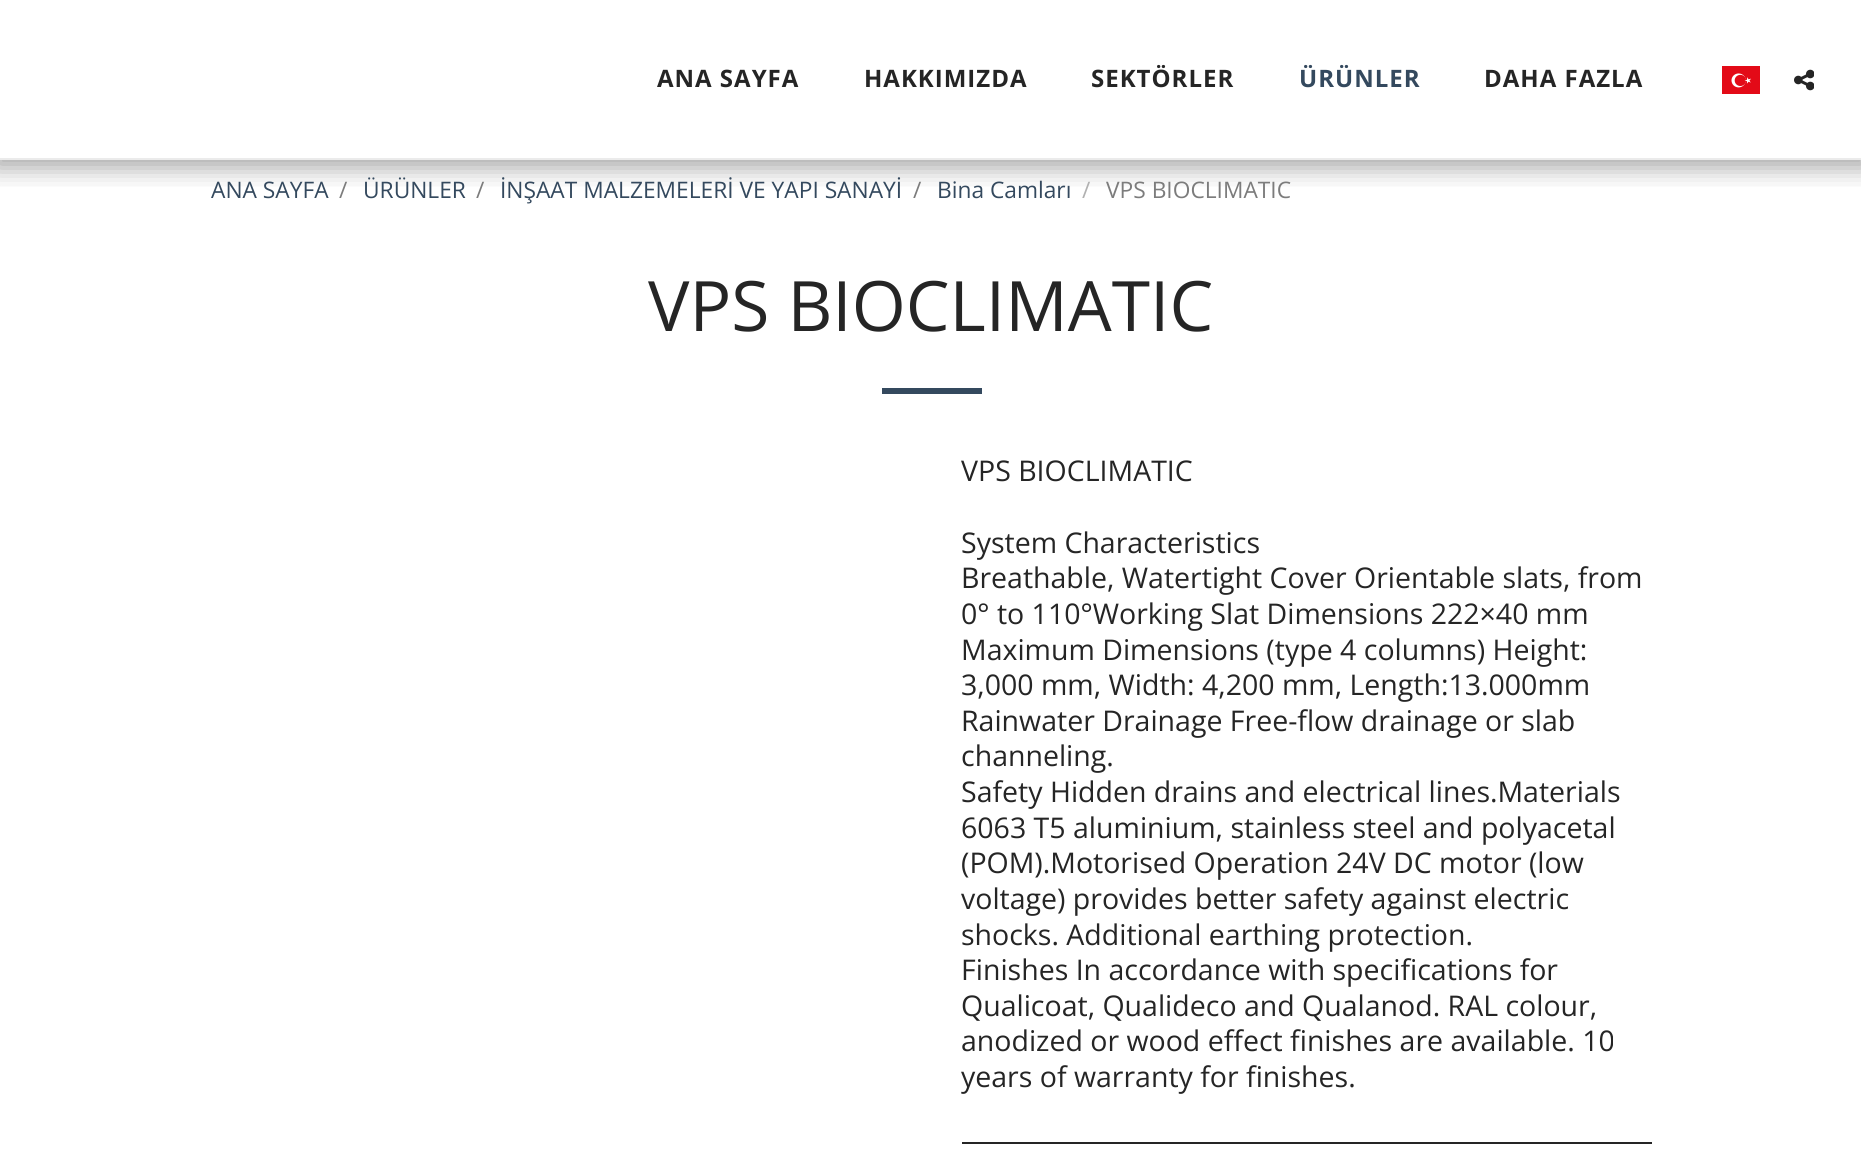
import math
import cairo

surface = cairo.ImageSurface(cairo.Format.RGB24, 1861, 1157)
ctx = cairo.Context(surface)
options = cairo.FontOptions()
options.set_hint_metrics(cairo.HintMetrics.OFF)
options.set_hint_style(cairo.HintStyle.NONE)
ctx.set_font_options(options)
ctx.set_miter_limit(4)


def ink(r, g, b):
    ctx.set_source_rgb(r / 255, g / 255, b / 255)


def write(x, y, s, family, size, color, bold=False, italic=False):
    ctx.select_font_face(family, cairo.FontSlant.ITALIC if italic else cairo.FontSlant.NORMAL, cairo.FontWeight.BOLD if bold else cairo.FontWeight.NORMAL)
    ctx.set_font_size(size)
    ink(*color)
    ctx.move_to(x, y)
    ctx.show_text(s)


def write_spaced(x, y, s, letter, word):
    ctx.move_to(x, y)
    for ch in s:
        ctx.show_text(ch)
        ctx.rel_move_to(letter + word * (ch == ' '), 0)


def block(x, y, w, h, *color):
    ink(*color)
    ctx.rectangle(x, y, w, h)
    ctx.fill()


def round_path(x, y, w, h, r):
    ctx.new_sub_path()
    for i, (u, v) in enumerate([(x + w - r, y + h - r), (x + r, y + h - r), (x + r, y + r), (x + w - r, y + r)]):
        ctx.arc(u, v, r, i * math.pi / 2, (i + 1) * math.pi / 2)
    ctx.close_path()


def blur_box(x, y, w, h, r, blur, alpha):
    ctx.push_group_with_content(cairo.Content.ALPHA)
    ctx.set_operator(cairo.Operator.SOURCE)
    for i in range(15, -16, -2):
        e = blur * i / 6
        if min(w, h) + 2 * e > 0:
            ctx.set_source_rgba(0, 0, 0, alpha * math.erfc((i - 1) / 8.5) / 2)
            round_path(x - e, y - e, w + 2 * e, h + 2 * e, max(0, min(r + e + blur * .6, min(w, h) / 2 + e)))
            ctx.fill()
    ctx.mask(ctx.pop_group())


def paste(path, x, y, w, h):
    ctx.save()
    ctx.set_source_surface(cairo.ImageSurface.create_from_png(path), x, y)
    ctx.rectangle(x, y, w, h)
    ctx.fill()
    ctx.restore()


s1 = dict(family="Open Sans", size=22.75, color=(52, 73, 94))
s2 = dict(family="Open Sans", size=22.75, color=(124, 124, 124))
s3 = dict(family="Open Sans", size=22.75, color=(177, 177, 177))
s4 = dict(family="Open Sans", size=69.5, color=(37, 37, 37))
s5 = dict(family="Open Sans", size=28.5, color=(37, 37, 37))

ink(255, 255, 255)
ctx.paint()
ctx.save()
ctx.rectangle(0, 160, 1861, 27)
ctx.clip()
ink(0, 0, 0)
blur_box(-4, 0, 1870, 168, 0, 12, 0.35)
ctx.restore()
block(0, 158, 1861, 2, 235, 235, 235)
ctx.select_font_face("Open Sans", cairo.FontSlant.NORMAL, cairo.FontWeight.BOLD)
ctx.set_font_size(24)
ink(37, 37, 37)
write_spaced(657, 87, "ANA SAYFA", 1, 0)
write_spaced(864, 87, "HAKKIMIZDA", 1, 0)
write_spaced(1091, 87, "SEKTÖRLER", 1, 0)
ink(52, 73, 94)
write_spaced(1299, 87, "ÜRÜNLER", 1, 0)
ink(37, 37, 37)
write_spaced(1484, 87, "DAHA FAZLA", 1, 0)
paste("pic1.png", 1722, 66, 38, 28)
paste("pic2.png", 1794, 69, 20, 22)
write(211, 198, "ANA SAYFA", **s1)
write(339, 198, "/", **s2)
write(363, 198, "ÜRÜNLER", **s1)
write(476, 198, "/", **s2)
write(500, 198, "İNŞAAT MALZEMELERİ VE YAPI SANAYİ", **s1)
write(913, 198, "/", **s2)
write(937, 198, "Bina Camları", **s1)
write(1082, 198, "/", **s3)
write(1106, 198, "VPS BIOCLIMATIC", **s2)
write(648, 331, "VPS BIOCLIMATIC", **s4)
block(882, 388, 100, 6, 52, 73, 94)
write(961, 481, "VPS BIOCLIMATIC", **s5)
write(961, 553, "System Characteristics", **s5)
write(961, 588, "Breathable, Watertight Cover Orientable slats, from", **s5)
write(961, 624, "0° to 110°Working Slat Dimensions 222×40 mm", **s5)
write(961, 660, "Maximum Dimensions (type 4 columns) Height:", **s5)
write(961, 695, "3,000 mm, Width: 4,200 mm, Length:13.000mm", **s5)
write(961, 731, "Rainwater Drainage Free-flow drainage or slab", **s5)
write(961, 766, "channeling.", **s5)
write(961, 802, "Safety Hidden drains and electrical lines.Materials", **s5)
write(961, 838, "6063 T5 aluminium, stainless steel and polyacetal", **s5)
write(961, 873, "(POM).Motorised Operation 24V DC motor (low", **s5)
write(961, 909, "voltage) provides better safety against electric", **s5)
write(961, 945, "shocks. Additional earthing protection.", **s5)
write(961, 980, "Finishes In accordance with specifications for", **s5)
write(961, 1016, "Qualicoat, Qualideco and Qualanod. RAL colour,", **s5)
write(961, 1051, "anodized or wood effect finishes are available. 10", **s5)
write(961, 1087, "years of warranty for finishes.", **s5)
block(962, 1142, 690, 2, 37, 37, 37)
surface.write_to_png("screenshot.png")
